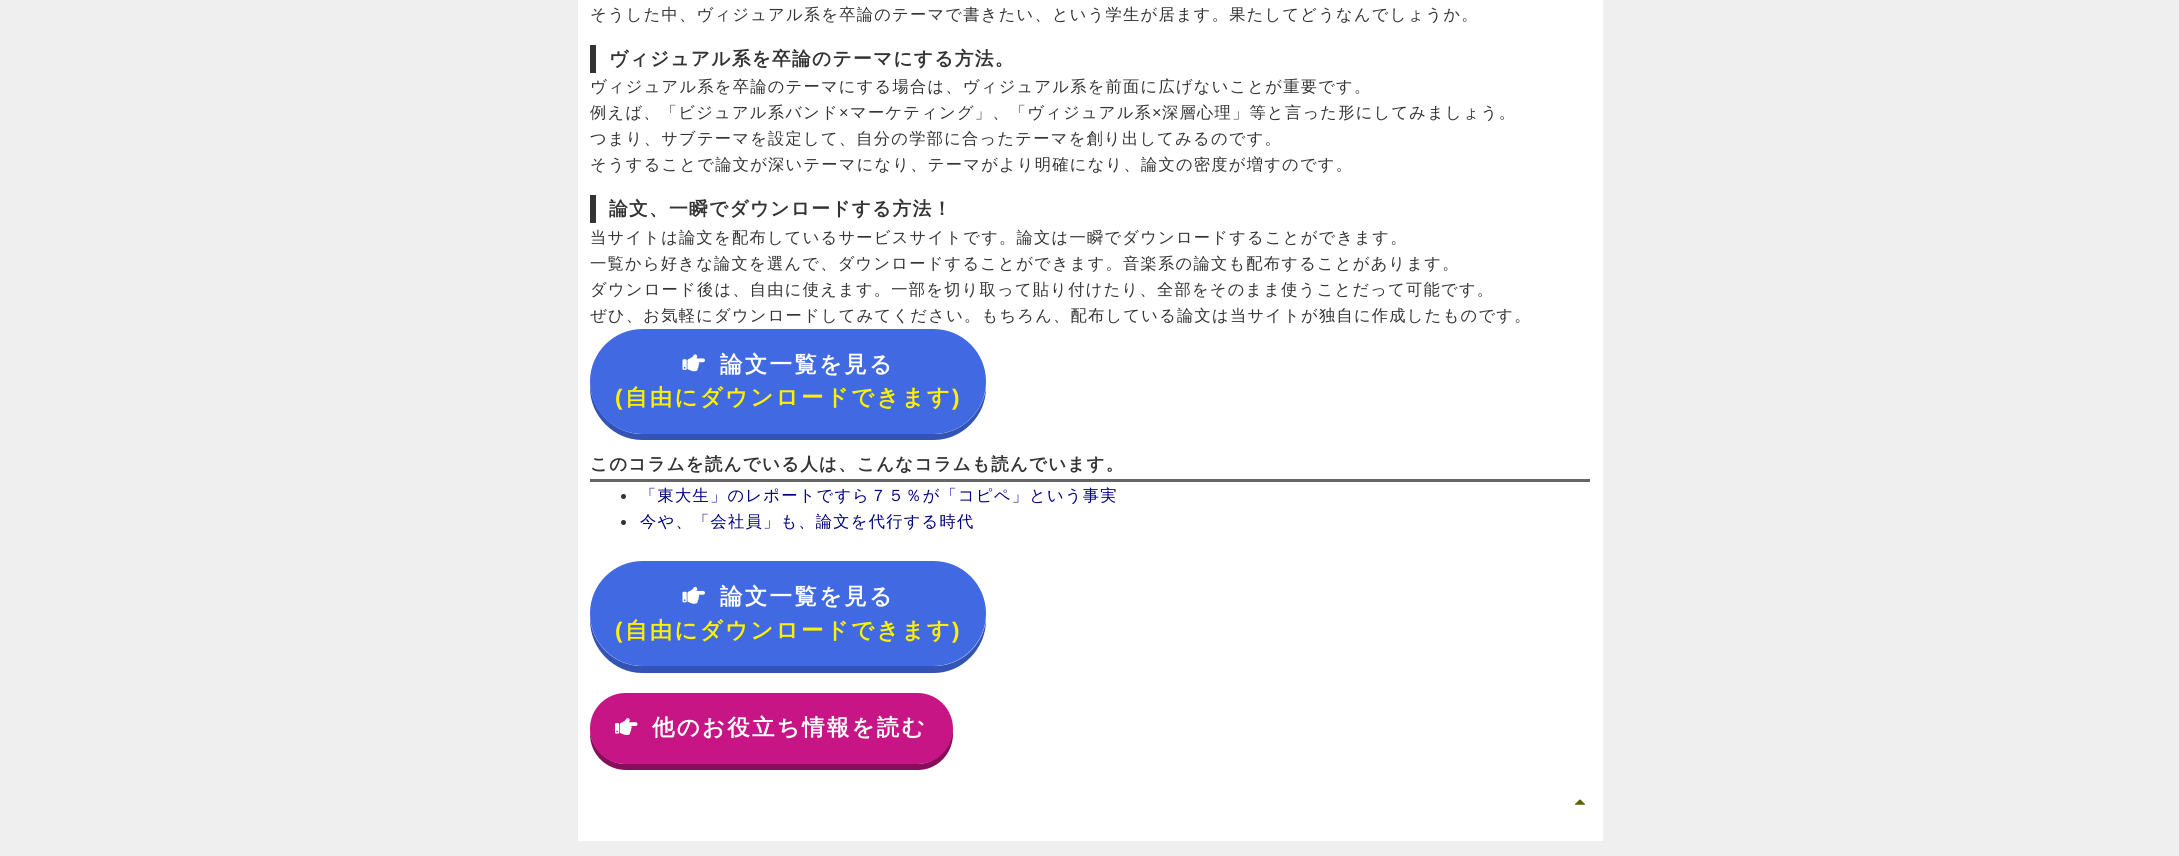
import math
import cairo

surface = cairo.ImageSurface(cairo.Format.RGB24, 2179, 856)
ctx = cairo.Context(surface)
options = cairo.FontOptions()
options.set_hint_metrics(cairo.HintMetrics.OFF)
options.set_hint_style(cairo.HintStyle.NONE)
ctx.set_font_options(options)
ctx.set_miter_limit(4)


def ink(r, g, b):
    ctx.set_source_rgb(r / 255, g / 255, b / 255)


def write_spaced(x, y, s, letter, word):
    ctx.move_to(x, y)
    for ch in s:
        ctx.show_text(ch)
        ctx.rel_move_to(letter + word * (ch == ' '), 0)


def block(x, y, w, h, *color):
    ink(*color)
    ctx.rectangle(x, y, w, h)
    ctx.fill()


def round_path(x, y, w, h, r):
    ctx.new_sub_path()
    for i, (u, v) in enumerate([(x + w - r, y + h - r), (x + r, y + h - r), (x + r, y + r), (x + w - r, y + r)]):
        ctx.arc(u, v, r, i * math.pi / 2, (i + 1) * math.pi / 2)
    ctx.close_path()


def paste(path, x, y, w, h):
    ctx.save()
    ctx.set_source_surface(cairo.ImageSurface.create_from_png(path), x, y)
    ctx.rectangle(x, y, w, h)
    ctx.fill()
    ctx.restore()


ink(239, 239, 239)
ctx.paint()
block(578, 0, 1025, 841, 255, 255, 255)
ctx.select_font_face("WenQuanYi Zen Hei Medium")
ctx.set_font_size(16.25)
ink(51, 51, 51)
write_spaced(590, 20, "そうした中、ヴィジュアル系を卒論のテーマで書きたい、という学生が居ます。果たしてどうなんでしょうか。", 1.25, 0)
block(590, 45, 6, 28, 51, 51, 51)
ctx.select_font_face("WenQuanYi Zen Hei", cairo.FontSlant.NORMAL, cairo.FontWeight.BOLD)
ctx.set_font_size(18.75)
write_spaced(609, 65, "ヴィジュアル系を卒論のテーマにする方法。", 1.25, 0)
ctx.select_font_face("WenQuanYi Zen Hei Medium")
ctx.set_font_size(16.25)
write_spaced(590, 92, "ヴィジュアル系を卒論のテーマにする場合は、ヴィジュアル系を前面に広げないことが重要です。", 1.25, 0)
write_spaced(590, 118, "例えば、「ビジュアル系バンド", 1.25, 0)
ctx.select_font_face("Liberation Sans")
write_spaced(839, 118, "×", 1.25, 0)
ctx.select_font_face("WenQuanYi Zen Hei Medium")
write_spaced(850, 118, "マーケティング」、「ヴィジュアル系", 1.25, 0)
ctx.select_font_face("Liberation Sans")
write_spaced(1152, 118, "×", 1.25, 0)
ctx.select_font_face("WenQuanYi Zen Hei Medium")
write_spaced(1162, 118, "深層心理」等と言った形にしてみましょう。", 1.25, 0)
write_spaced(590, 144, "つまり、サブテーマを設定して、自分の学部に合ったテーマを創り出してみるのです。", 1.25, 0)
write_spaced(590, 170, "そうすることで論文が深いテーマになり、テーマがより明確になり、論文の密度が増すのです。", 1.25, 0)
block(590, 195, 6, 28, 51, 51, 51)
ctx.select_font_face("WenQuanYi Zen Hei", cairo.FontSlant.NORMAL, cairo.FontWeight.BOLD)
ctx.set_font_size(18.75)
write_spaced(609, 215, "論文、一瞬でダウンロードする方法！", 1.25, 0)
ctx.select_font_face("WenQuanYi Zen Hei Medium")
ctx.set_font_size(16.25)
write_spaced(590, 243, "当サイトは論文を配布しているサービスサイトです。論文は一瞬でダウンロードすることができます。", 1.25, 0)
write_spaced(590, 269, "一覧から好きな論文を選んで、ダウンロードすることができます。音楽系の論文も配布することがあります。", 1.25, 0)
write_spaced(590, 295, "ダウンロード後は、自由に使えます。一部を切り取って貼り付けたり、全部をそのまま使うことだって可能です。", 1.25, 0)
write_spaced(590, 321, "ぜひ、お気軽にダウンロードしてみてください。もちろん、配布している論文は当サイトが独自に作成したものです。", 1.25, 0)
ink(52, 84, 181)
ctx.new_path()
ctx.move_to(590, 384)
ctx.line_to(590, 388)
ctx.curve_to(590, 416, 614, 440, 642, 440)
ctx.line_to(934, 440)
ctx.curve_to(962, 440, 986, 416, 986, 388)
ctx.line_to(986, 387)
ctx.curve_to(983, 413, 961, 434, 934, 434)
ctx.line_to(642, 434)
ctx.curve_to(615, 434, 592, 412, 590, 384)
ctx.close_path()
ctx.fill()
ink(65, 105, 225)
round_path(590, 329, 396, 105, 52.5)
ctx.fill()
paste("pic1.png", 682, 354, 23, 18)
ctx.select_font_face("WenQuanYi Zen Hei", cairo.FontSlant.NORMAL, cairo.FontWeight.BOLD)
ctx.set_font_size(22.5)
ink(255, 255, 255)
write_spaced(720, 372, "論文一覧を見る", 2.25, 0)
ctx.select_font_face("Liberation Sans", cairo.FontSlant.NORMAL, cairo.FontWeight.BOLD)
ink(255, 241, 0)
write_spaced(615, 405, "(", 2.25, 0)
ctx.select_font_face("WenQuanYi Zen Hei", cairo.FontSlant.NORMAL, cairo.FontWeight.BOLD)
write_spaced(625, 405, "自由にダウンロードできます", 2.25, 0)
ctx.select_font_face("Liberation Sans", cairo.FontSlant.NORMAL, cairo.FontWeight.BOLD)
write_spaced(952, 405, ")", 2.25, 0)
block(590, 479, 1000, 3, 102, 102, 102)
ctx.select_font_face("WenQuanYi Zen Hei", cairo.FontSlant.NORMAL, cairo.FontWeight.BOLD)
ctx.set_font_size(17.5)
ink(51, 51, 51)
write_spaced(590, 470, "このコラムを読んでいる人は、こんなコラムも読んでいます。", 1.25, 0)
ctx.new_path()
ctx.arc(623.5, 496.5, 2.5, 0, 2 * math.pi)
ctx.fill()
ctx.select_font_face("WenQuanYi Zen Hei Medium")
ctx.set_font_size(16.25)
ink(0, 0, 128)
write_spaced(640, 501, "「東大生」のレポートですら７５％が「コピペ」という事実", 1.25, 0)
ink(51, 51, 51)
ctx.new_path()
ctx.arc(623.5, 522.5, 2.5, 0, 2 * math.pi)
ctx.fill()
ink(0, 0, 128)
write_spaced(640, 527, "今や、「会社員」も、論文を代行する時代", 1.25, 0)
ink(52, 84, 181)
ctx.new_path()
ctx.move_to(590, 617)
ctx.line_to(590, 620)
ctx.curve_to(590, 649, 614, 673, 642, 673)
ctx.line_to(934, 673)
ctx.curve_to(962, 673, 986, 649, 986, 620)
ctx.line_to(986, 619)
ctx.curve_to(983, 646, 961, 666, 934, 666)
ctx.line_to(642, 666)
ctx.curve_to(615, 666, 592, 645, 590, 617)
ctx.close_path()
ctx.fill()
ink(65, 105, 225)
round_path(590, 561, 396, 105, 52.5)
ctx.fill()
paste("pic2.png", 682, 586, 23, 18)
ctx.select_font_face("WenQuanYi Zen Hei", cairo.FontSlant.NORMAL, cairo.FontWeight.BOLD)
ctx.set_font_size(22.5)
ink(255, 255, 255)
write_spaced(720, 604, "論文一覧を見る", 2.25, 0)
ctx.select_font_face("Liberation Sans", cairo.FontSlant.NORMAL, cairo.FontWeight.BOLD)
ink(255, 241, 0)
write_spaced(615, 638, "(", 2.25, 0)
ctx.select_font_face("WenQuanYi Zen Hei", cairo.FontSlant.NORMAL, cairo.FontWeight.BOLD)
write_spaced(625, 638, "自由にダウンロードできます", 2.25, 0)
ctx.select_font_face("Liberation Sans", cairo.FontSlant.NORMAL, cairo.FontWeight.BOLD)
write_spaced(952, 638, ")", 2.25, 0)
ink(135, 14, 91)
ctx.new_path()
ctx.move_to(590, 731)
ctx.line_to(590, 734)
ctx.curve_to(590, 754, 606, 770, 626, 770)
ctx.line_to(918, 770)
ctx.curve_to(937, 770, 953, 754, 953, 734)
ctx.line_to(952, 729)
ctx.curve_to(952, 748, 936, 764, 917, 764)
ctx.line_to(626, 764)
ctx.curve_to(607, 764, 592, 749, 590, 731)
ctx.close_path()
ctx.fill()
ink(199, 21, 133)
round_path(590, 693, 363, 71, 35.5)
ctx.fill()
paste("pic3.png", 615, 718, 23, 17)
ctx.select_font_face("WenQuanYi Zen Hei", cairo.FontSlant.NORMAL, cairo.FontWeight.BOLD)
ink(255, 255, 255)
write_spaced(652, 735, "他のお役立ち情報を読む", 2.25, 0)
paste("pic4.png", 1575, 799, 10, 6)
surface.write_to_png("screenshot.png")
